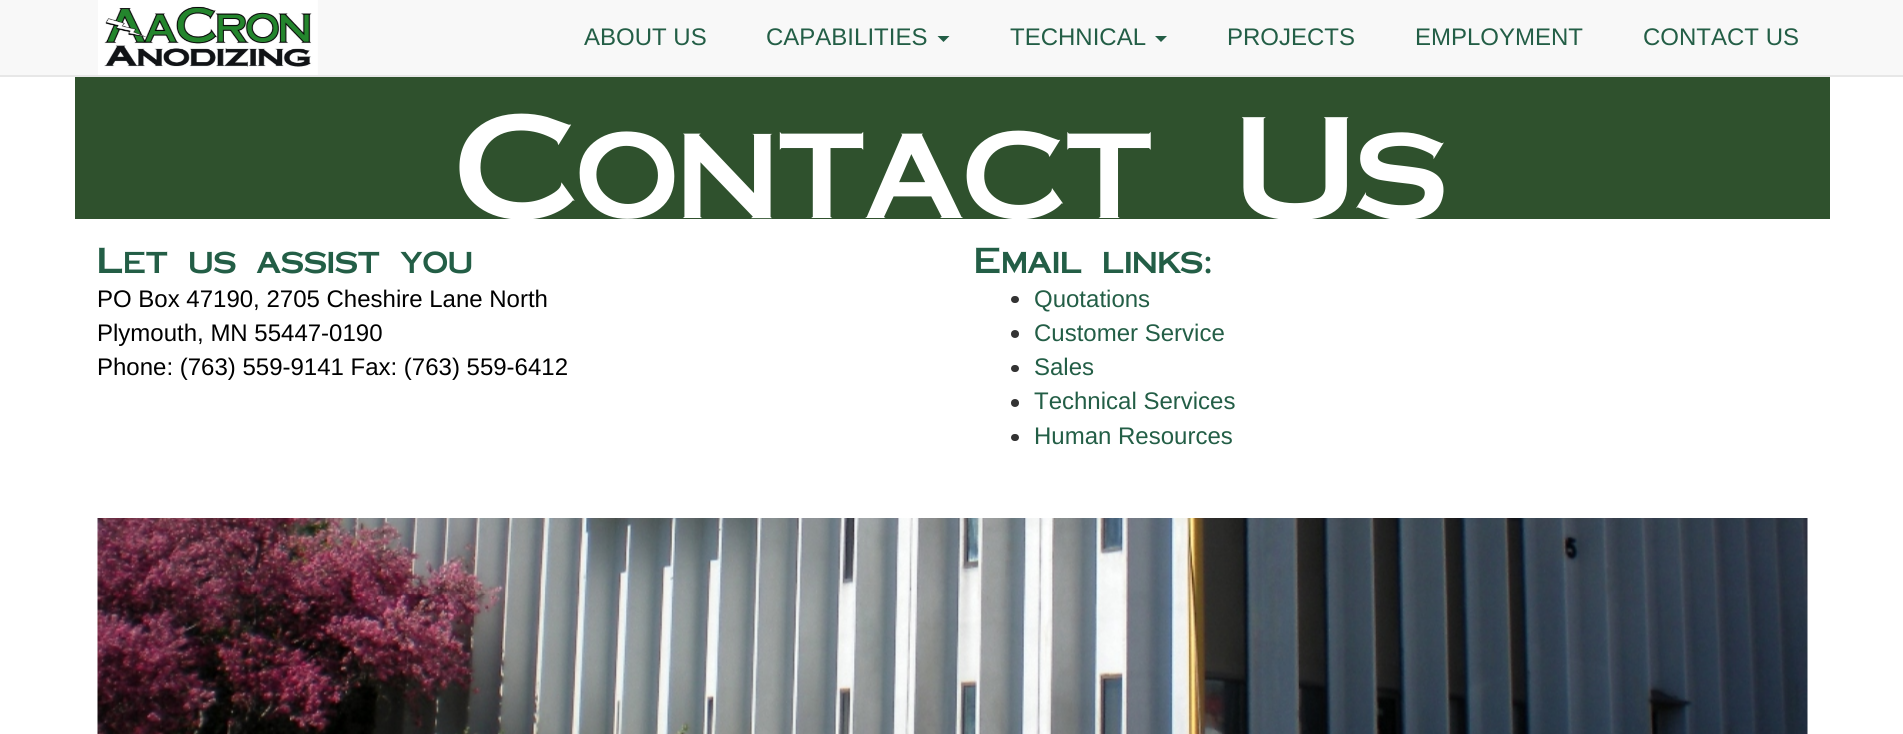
import math
import cairo

surface = cairo.ImageSurface(cairo.Format.RGB24, 1903, 734)
ctx = cairo.Context(surface)
options = cairo.FontOptions()
options.set_hint_metrics(cairo.HintMetrics.OFF)
options.set_hint_style(cairo.HintStyle.NONE)
ctx.set_font_options(options)
ctx.set_miter_limit(4)


def ink(r, g, b):
    ctx.set_source_rgb(r / 255, g / 255, b / 255)


def write(x, y, s, family, size, color, bold=False, italic=False):
    ctx.select_font_face(family, cairo.FontSlant.ITALIC if italic else cairo.FontSlant.NORMAL, cairo.FontWeight.BOLD if bold else cairo.FontWeight.NORMAL)
    ctx.set_font_size(size)
    ink(*color)
    ctx.move_to(x, y)
    ctx.show_text(s)


def block(x, y, w, h, *color):
    ink(*color)
    ctx.rectangle(x, y, w, h)
    ctx.fill()


def round_path(x, y, w, h, r):
    ctx.new_sub_path()
    for i, (u, v) in enumerate([(x + w - r, y + h - r), (x + r, y + h - r), (x + r, y + r), (x + w - r, y + r)]):
        ctx.arc(u, v, r, i * math.pi / 2, (i + 1) * math.pi / 2)
    ctx.close_path()


def paste(path, x, y, w, h):
    ctx.save()
    ctx.set_source_surface(cairo.ImageSurface.create_from_png(path), x, y)
    ctx.rectangle(x, y, w, h)
    ctx.fill()
    ctx.restore()


s1 = dict(family="Liberation Sans", size=24, color=(35, 94, 70))
s2 = dict(family="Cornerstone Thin", size=144, color=(255, 255, 255))
s3 = dict(family="Cornerstone Thin", size=36, color=(35, 94, 70))
s4 = dict(family="Liberation Sans", size=24, color=(0, 0, 0))

ink(255, 255, 255)
ctx.paint()
block(0, 0, 1903, 75, 248, 248, 248)
block(0, 75, 1903, 2, 231, 231, 231)
paste("pic1.png", 98, 0, 220, 75)
write(584, 45, "ABOUT US", **s1)
write(766, 45, "CAPABILITIES", **s1)
ctx.new_path()
ctx.move_to(937.5, 36)
ctx.line_to(949.5, 36)
ctx.line_to(943.5, 42)
ctx.close_path()
ctx.fill()
write(1010, 45, "TECHNICAL", **s1)
ctx.new_path()
ctx.move_to(1155, 36)
ctx.line_to(1167, 36)
ctx.line_to(1161, 42)
ctx.close_path()
ctx.fill()
write(1227, 45, "PROJECTS", **s1)
write(1415, 45, "EMPLOYMENT", **s1)
write(1643, 45, "CONTACT US", **s1)
block(75, 77, 1755, 142, 47, 81, 45)
write(456, 218, "Contact Us", **s2)
write(97, 273, "Let us assist you", **s3)
write(97, 307, "PO Box 47190, 2705 Cheshire Lane North", **s4)
write(97, 341, "Plymouth, MN 55447-0190", **s4)
write(97, 375, "Phone: (763) 559-9141 Fax: (763) 559-6412", **s4)
write(974, 273, "Email links:", **s3)
ink(51, 51, 51)
round_path(1011, 296, 8, 7, 3.5)
ctx.fill()
write(1034, 307, "Quotations", **s1)
ink(51, 51, 51)
ctx.new_path()
ctx.arc(1015, 334, 4, 0, 2 * math.pi)
ctx.fill()
write(1034, 341, "Customer Service", **s1)
ink(51, 51, 51)
round_path(1011, 365, 8, 7, 3.5)
ctx.fill()
write(1034, 375, "Sales", **s1)
ink(51, 51, 51)
ctx.new_path()
ctx.arc(1015, 403, 4, 0, 2 * math.pi)
ctx.fill()
write(1034, 409, "Technical Services", **s1)
ink(51, 51, 51)
round_path(1011, 434, 8, 7, 3.5)
ctx.fill()
write(1034, 444, "Human Resources", **s1)
paste("pic2.png", 97, 518, 1711, 216)
surface.write_to_png("screenshot.png")
